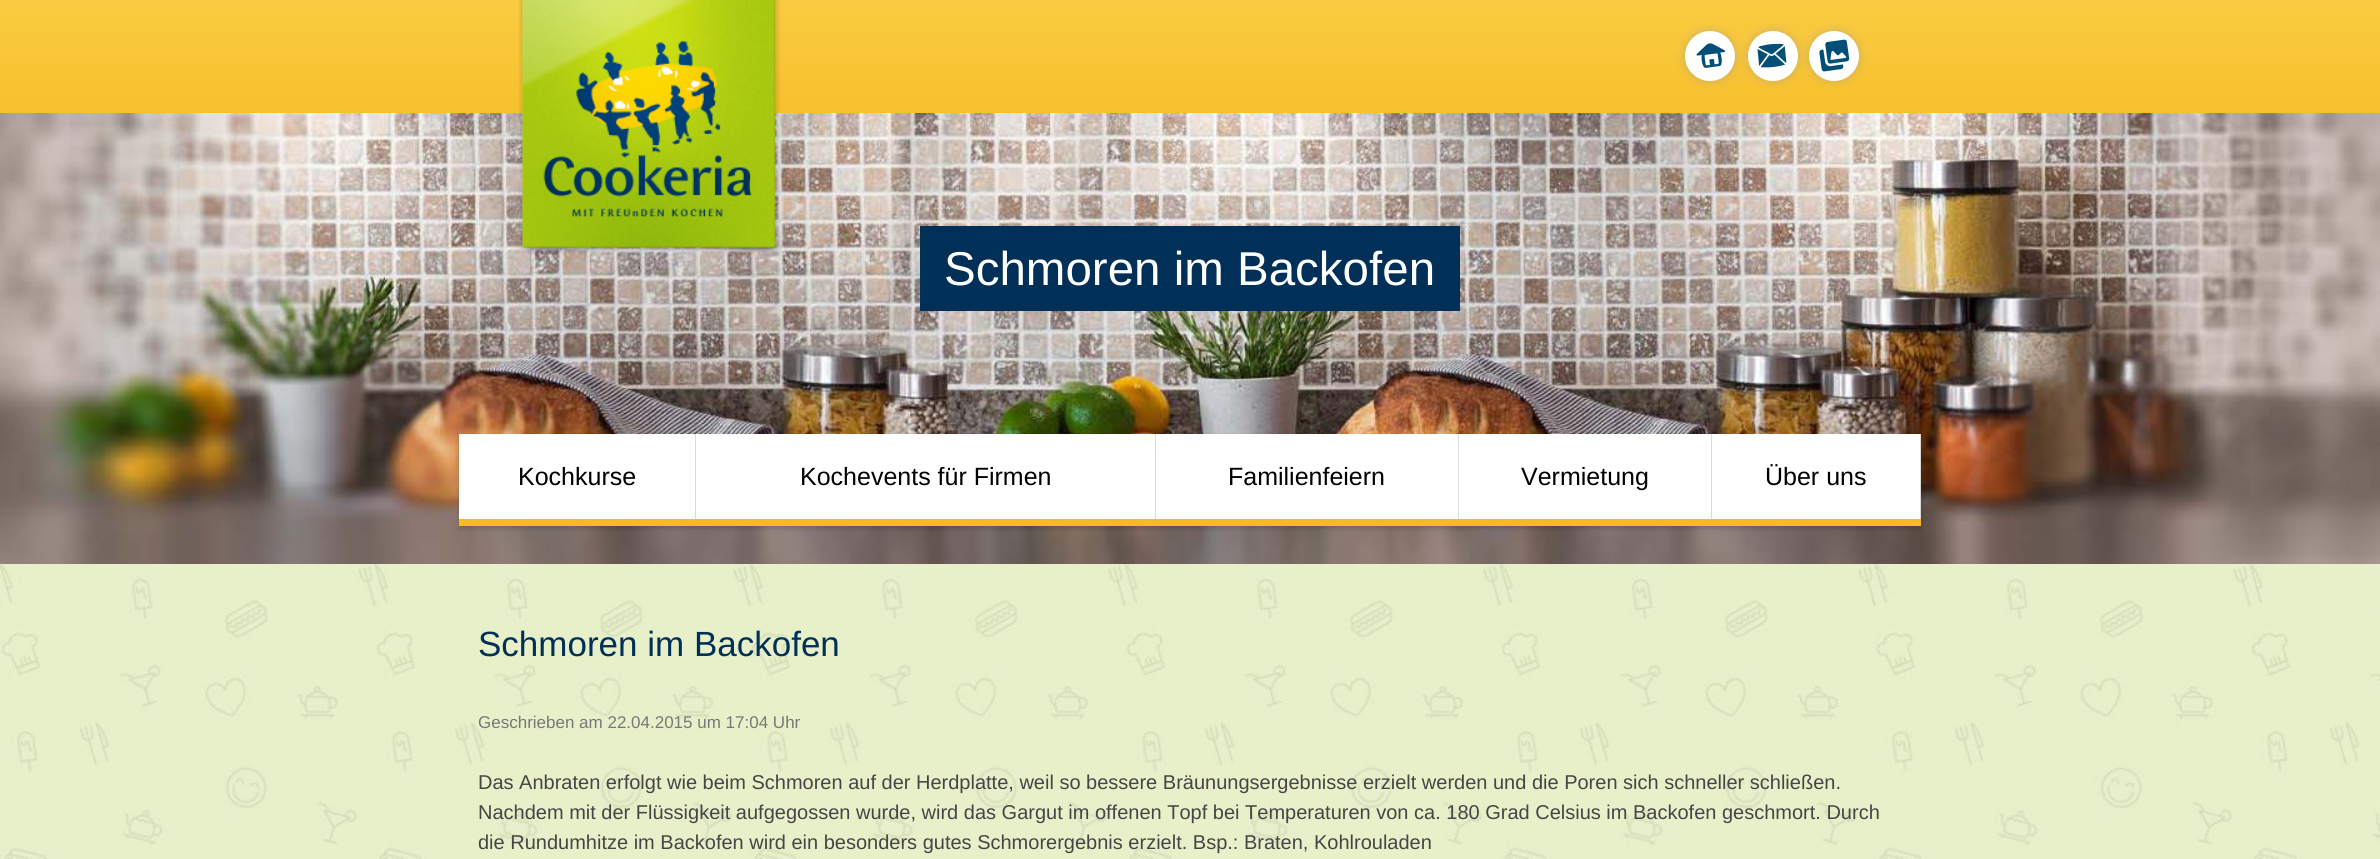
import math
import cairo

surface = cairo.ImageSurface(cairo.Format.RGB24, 2380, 859)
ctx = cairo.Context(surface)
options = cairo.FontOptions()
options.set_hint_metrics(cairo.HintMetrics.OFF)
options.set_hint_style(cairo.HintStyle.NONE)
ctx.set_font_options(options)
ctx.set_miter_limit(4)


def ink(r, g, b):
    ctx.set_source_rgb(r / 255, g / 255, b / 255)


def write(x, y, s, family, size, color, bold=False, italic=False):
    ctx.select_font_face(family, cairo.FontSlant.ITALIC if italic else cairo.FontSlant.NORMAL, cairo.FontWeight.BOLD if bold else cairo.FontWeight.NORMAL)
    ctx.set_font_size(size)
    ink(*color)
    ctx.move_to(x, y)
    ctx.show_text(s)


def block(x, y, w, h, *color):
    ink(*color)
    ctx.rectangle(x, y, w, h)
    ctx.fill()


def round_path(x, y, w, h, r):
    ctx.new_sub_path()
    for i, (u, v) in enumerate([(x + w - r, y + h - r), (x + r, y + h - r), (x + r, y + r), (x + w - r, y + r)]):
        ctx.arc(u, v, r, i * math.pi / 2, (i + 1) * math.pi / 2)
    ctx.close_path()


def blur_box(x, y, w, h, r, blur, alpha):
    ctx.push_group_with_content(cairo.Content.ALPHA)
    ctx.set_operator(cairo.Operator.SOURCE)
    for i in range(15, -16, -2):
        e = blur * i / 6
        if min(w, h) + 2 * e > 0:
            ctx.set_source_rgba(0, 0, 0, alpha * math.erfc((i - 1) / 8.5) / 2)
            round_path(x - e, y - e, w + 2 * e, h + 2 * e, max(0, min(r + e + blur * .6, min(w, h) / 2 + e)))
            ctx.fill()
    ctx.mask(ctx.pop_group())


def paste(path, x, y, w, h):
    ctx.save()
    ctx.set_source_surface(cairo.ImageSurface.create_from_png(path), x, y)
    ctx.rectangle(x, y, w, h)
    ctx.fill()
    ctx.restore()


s1 = dict(family="Liberation Sans", size=47.5, color=(255, 255, 255))
s2 = dict(family="Liberation Sans", size=25, color=(0, 0, 0))
s3 = dict(family="Liberation Sans", size=35, color=(0, 47, 88))
s4 = dict(family="Liberation Sans", size=17, color=(119, 119, 119))
s5 = dict(family="Liberation Sans", size=20, color=(69, 69, 69))

ink(255, 255, 255)
ctx.paint()
gradient = cairo.LinearGradient(1190, 0, 1190, 113)
gradient.add_color_stop_rgba(0, 0.976, 0.8, 0.255, 1)
gradient.add_color_stop_rgba(1, 0.973, 0.753, 0.173, 1)
ctx.set_source(gradient)
ctx.rectangle(0, 0, 2380, 113)
ctx.fill()
paste("pic5.png", 0, 113, 2380, 451)
paste("pic1.png", 518, 0, 264, 254)
ink(161, 150, 148)
blur_box(1685, 31, 50, 50, 25, 5, 0.5)
ink(255, 255, 255)
ctx.arc(1710, 56, 25, 0, 2 * math.pi)
ctx.fill()
paste("pic2.png", 1696, 43, 30, 25)
ink(161, 150, 148)
blur_box(1748, 31, 50, 50, 25, 5, 0.5)
ink(255, 255, 255)
ctx.arc(1773, 56, 25, 0, 2 * math.pi)
ctx.fill()
paste("pic3.png", 1757, 43, 30, 25)
ink(161, 150, 148)
blur_box(1809, 31, 50, 50, 25, 5, 0.5)
ink(255, 255, 255)
ctx.arc(1834, 56, 25, 0, 2 * math.pi)
ctx.fill()
paste("pic4.png", 1819, 39, 31, 33)
block(920, 226, 540, 85, 0, 47, 88)
write(944, 285, "Schmoren im Backofen", **s1)
ink(5, 5, 5)
blur_box(459, 436, 1462, 93, 0, 2, 0.15)
block(459, 434, 1461, 85, 255, 255, 255)
block(459, 519, 1462, 7, 247, 186, 33)
block(695, 434, 1, 85, 220, 220, 220)
write(518, 485, "Kochkurse", **s2)
block(1155, 434, 1, 85, 220, 220, 220)
write(800, 485, "Kochevents für Firmen", **s2)
block(1458, 434, 1, 85, 220, 220, 220)
write(1228, 485, "Familienfeiern", **s2)
block(1711, 434, 1, 85, 220, 220, 220)
write(1521, 485, "Vermietung", **s2)
block(1920, 434, 1, 85, 220, 220, 220)
write(1765, 485, "Über uns", **s2)
paste("pic6.png", 0, 564, 2380, 295)
write(478, 656, "Schmoren im Backofen", **s3)
write(478, 728, "Geschrieben am 22.04.2015 um 17:04 Uhr", **s4)
write(478, 789, "Das Anbraten erfolgt wie beim Schmoren auf der Herdplatte, weil so bessere Bräunungsergebnisse erzielt werden und die Poren sich schneller schließen.", **s5)
write(478, 819, "Nachdem mit der Flüssigkeit aufgegossen wurde, wird das Gargut im offenen Topf bei Temperaturen von ca. 180 Grad Celsius im Backofen geschmort. Durch", **s5)
write(478, 849, "die Rundumhitze im Backofen wird ein besonders gutes Schmorergebnis erzielt. Bsp.: Braten, Kohlrouladen", **s5)
surface.write_to_png("screenshot.png")
